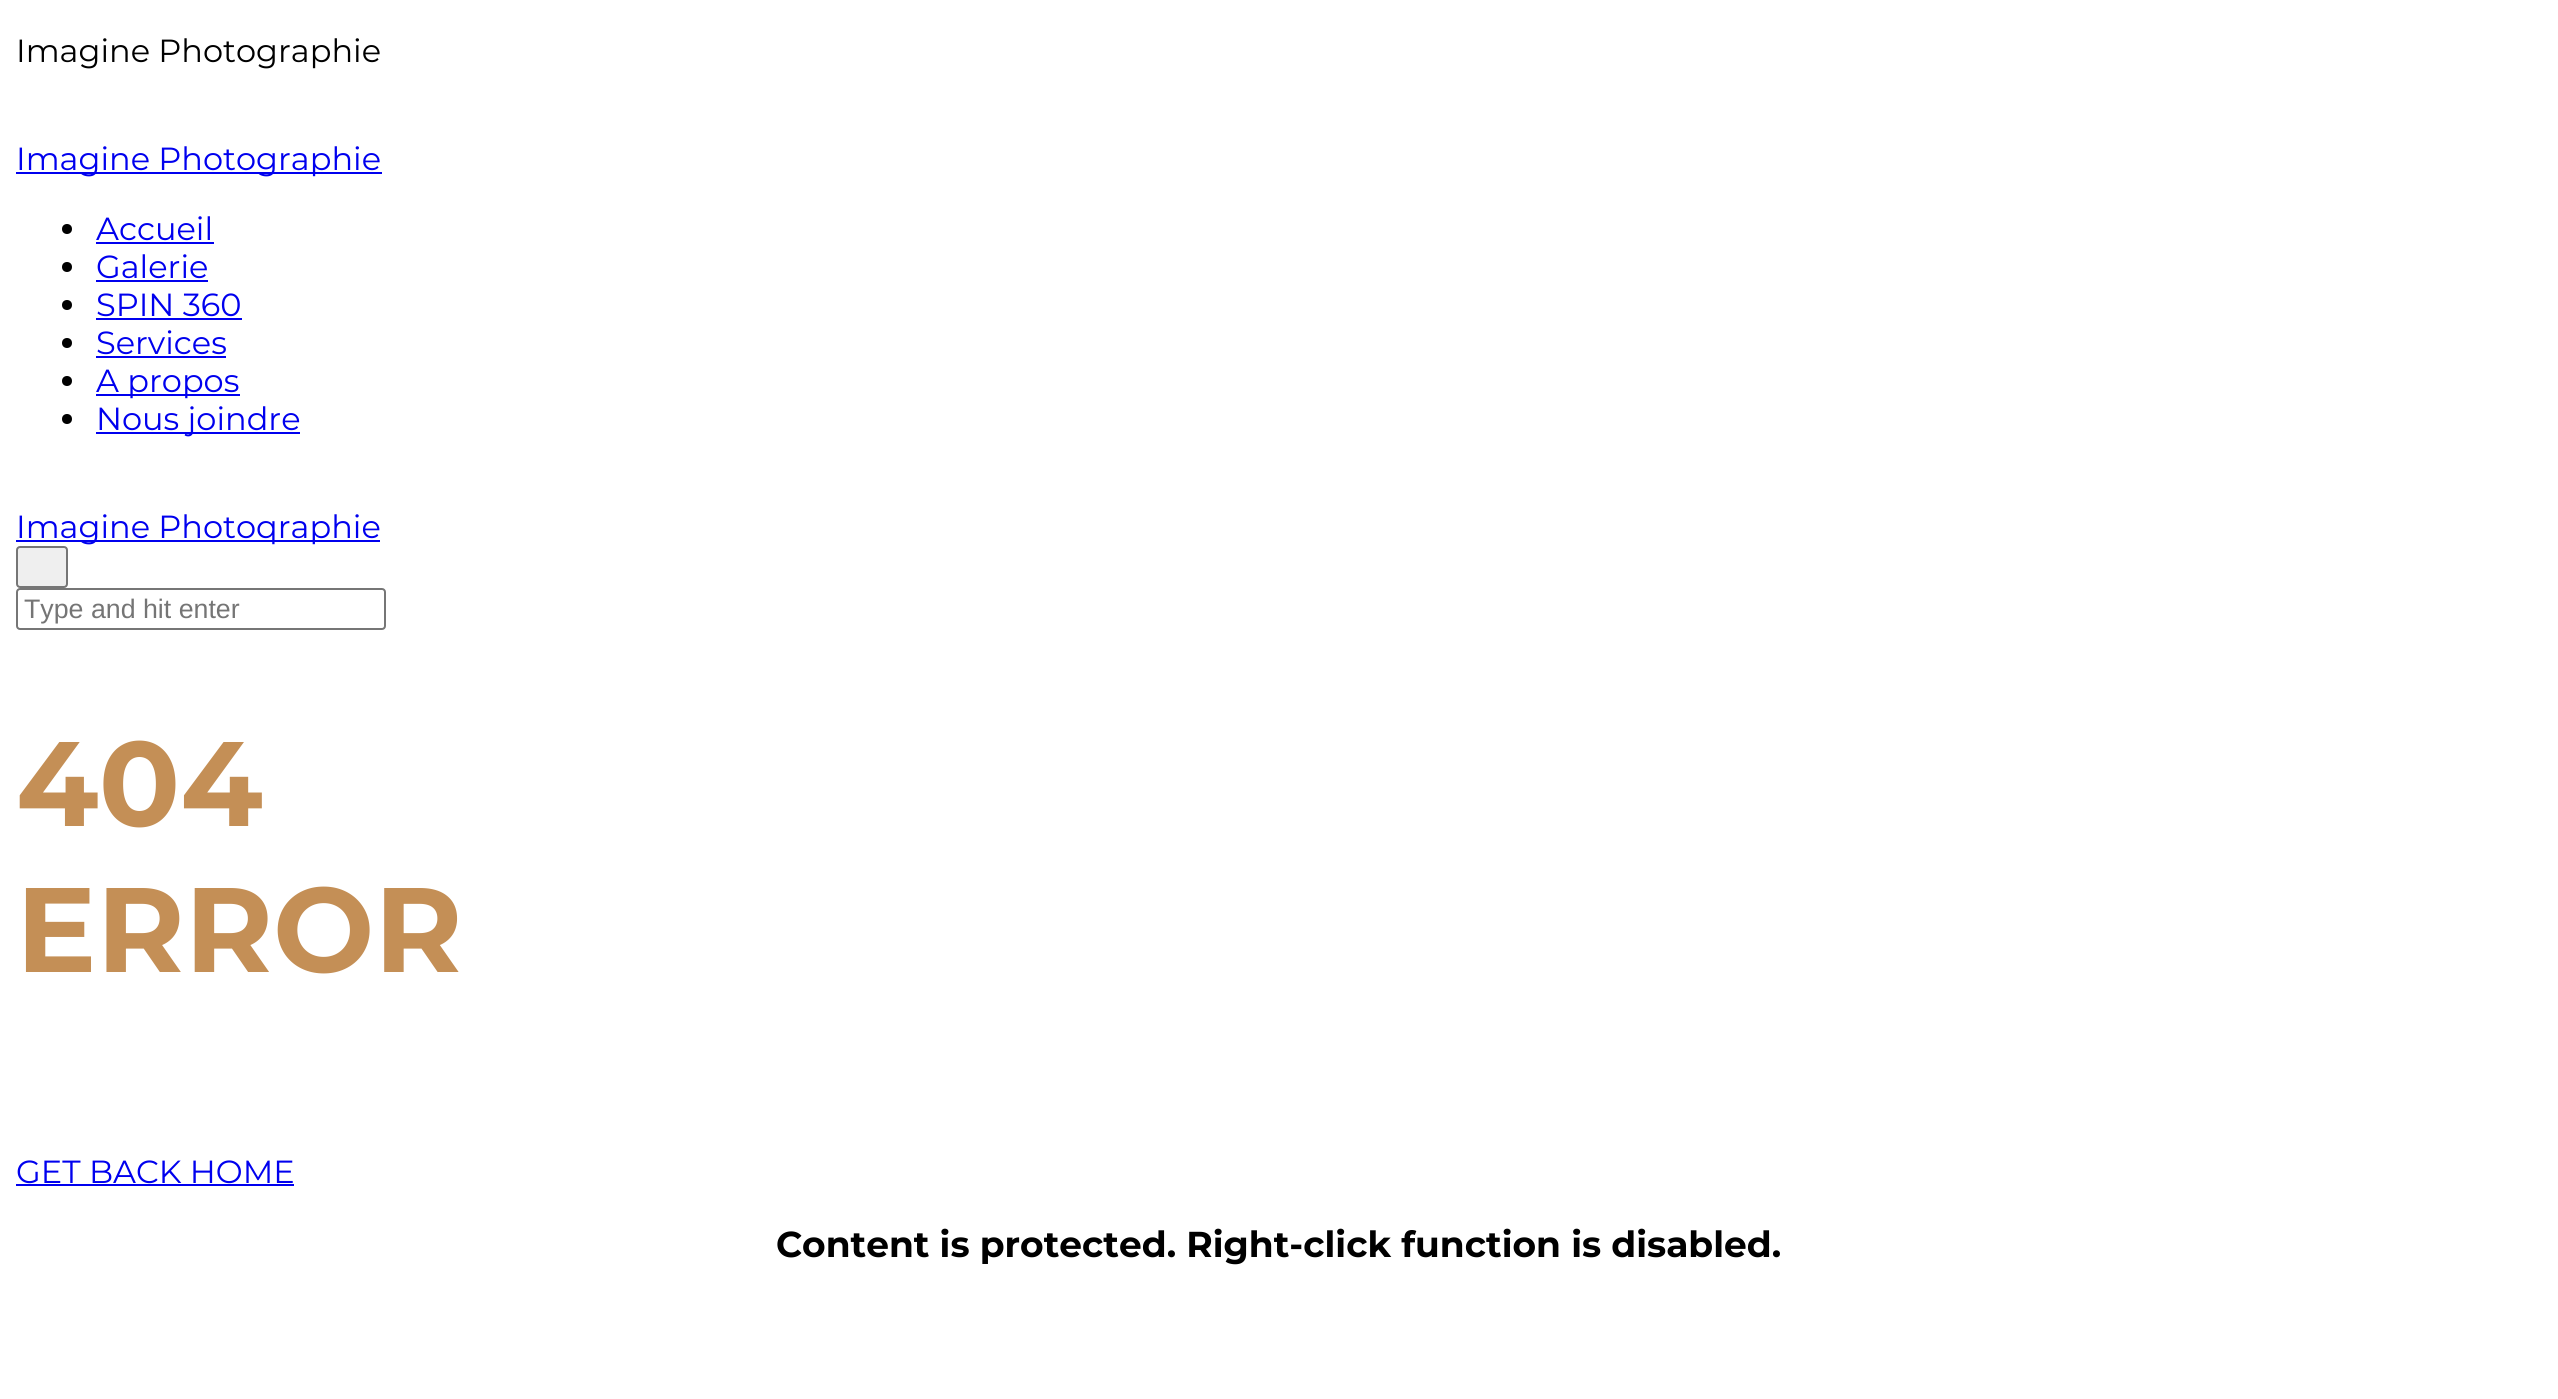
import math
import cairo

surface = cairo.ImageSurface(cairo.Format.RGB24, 2558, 1399)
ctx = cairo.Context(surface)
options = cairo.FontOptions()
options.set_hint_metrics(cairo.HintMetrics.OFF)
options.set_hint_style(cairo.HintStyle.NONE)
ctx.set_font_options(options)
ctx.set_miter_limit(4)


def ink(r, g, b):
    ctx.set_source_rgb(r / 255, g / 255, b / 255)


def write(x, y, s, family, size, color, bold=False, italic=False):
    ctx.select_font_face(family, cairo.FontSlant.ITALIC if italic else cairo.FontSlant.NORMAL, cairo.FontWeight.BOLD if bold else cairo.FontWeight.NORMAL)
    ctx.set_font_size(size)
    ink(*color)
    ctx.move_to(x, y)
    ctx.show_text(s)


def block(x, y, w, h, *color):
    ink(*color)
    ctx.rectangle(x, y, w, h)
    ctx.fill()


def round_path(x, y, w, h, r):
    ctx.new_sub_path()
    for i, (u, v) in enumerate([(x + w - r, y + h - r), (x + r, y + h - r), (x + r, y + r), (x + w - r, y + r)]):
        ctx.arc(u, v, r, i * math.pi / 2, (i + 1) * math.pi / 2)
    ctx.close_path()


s1 = dict(family="Montserrat", size=32, color=(0, 0, 0))
s2 = dict(family="Montserrat", size=32, color=(0, 0, 238))
s3 = dict(family="Liberation Sans", size=26.75, color=(117, 117, 117))
s4 = dict(family="Montserrat", size=120, color=(196, 143, 86), bold=True)
s5 = dict(family="Montserrat", size=36, color=(0, 0, 0), bold=True)

ink(255, 255, 255)
ctx.paint()
write(16, 62, "Imagine Photographie", **s1)
block(16, 172, 366, 2, 0, 0, 238)
write(16, 170, "Imagine Photographie", **s2)
ink(0, 0, 0)
ctx.new_path()
ctx.arc(67, 229, 5, 0, 2 * math.pi)
ctx.fill()
write(96, 240, "Accueil", **s2)
block(96, 242, 118, 2, 0, 0, 238)
ink(0, 0, 0)
ctx.new_path()
ctx.arc(67, 267, 5, 0, 2 * math.pi)
ctx.fill()
write(96, 278, "Galerie", **s2)
block(96, 280, 112, 2, 0, 0, 238)
ink(0, 0, 0)
ctx.new_path()
ctx.arc(67, 305, 5, 0, 2 * math.pi)
ctx.fill()
write(96, 316, "SPIN 360", **s2)
block(96, 318, 146, 2, 0, 0, 238)
ink(0, 0, 0)
ctx.new_path()
ctx.arc(67, 343, 5, 0, 2 * math.pi)
ctx.fill()
write(96, 354, "Services", **s2)
block(96, 356, 130, 2, 0, 0, 238)
ink(0, 0, 0)
ctx.new_path()
ctx.arc(67, 381, 5, 0, 2 * math.pi)
ctx.fill()
block(96, 394, 144, 2, 0, 0, 238)
write(96, 392, "A propos", **s2)
ink(0, 0, 0)
ctx.new_path()
ctx.arc(67, 419, 5, 0, 2 * math.pi)
ctx.fill()
block(96, 432, 204, 2, 0, 0, 238)
write(96, 430, "Nous joindre", **s2)
block(16, 540, 364, 2, 0, 0, 238)
write(16, 538, "Imagine Photoqraphie", **s2)
ink(239, 239, 239)
round_path(17, 547, 50, 40, 3)
ctx.fill_preserve()
ink(118, 118, 118)
ctx.stroke()
round_path(17, 589, 368, 40, 3)
ctx.stroke()
write(24, 618, "Type and hit enter", **s3)
write(16, 826, "404", **s4)
write(16, 972, "ERROR", **s4)
write(16, 1183, "GET BACK HOME", **s2)
block(16, 1184, 278, 2, 0, 0, 238)
write(776, 1257, "Content is protected. Right-click function is disabled.", **s5)
surface.write_to_png("screenshot.png")
